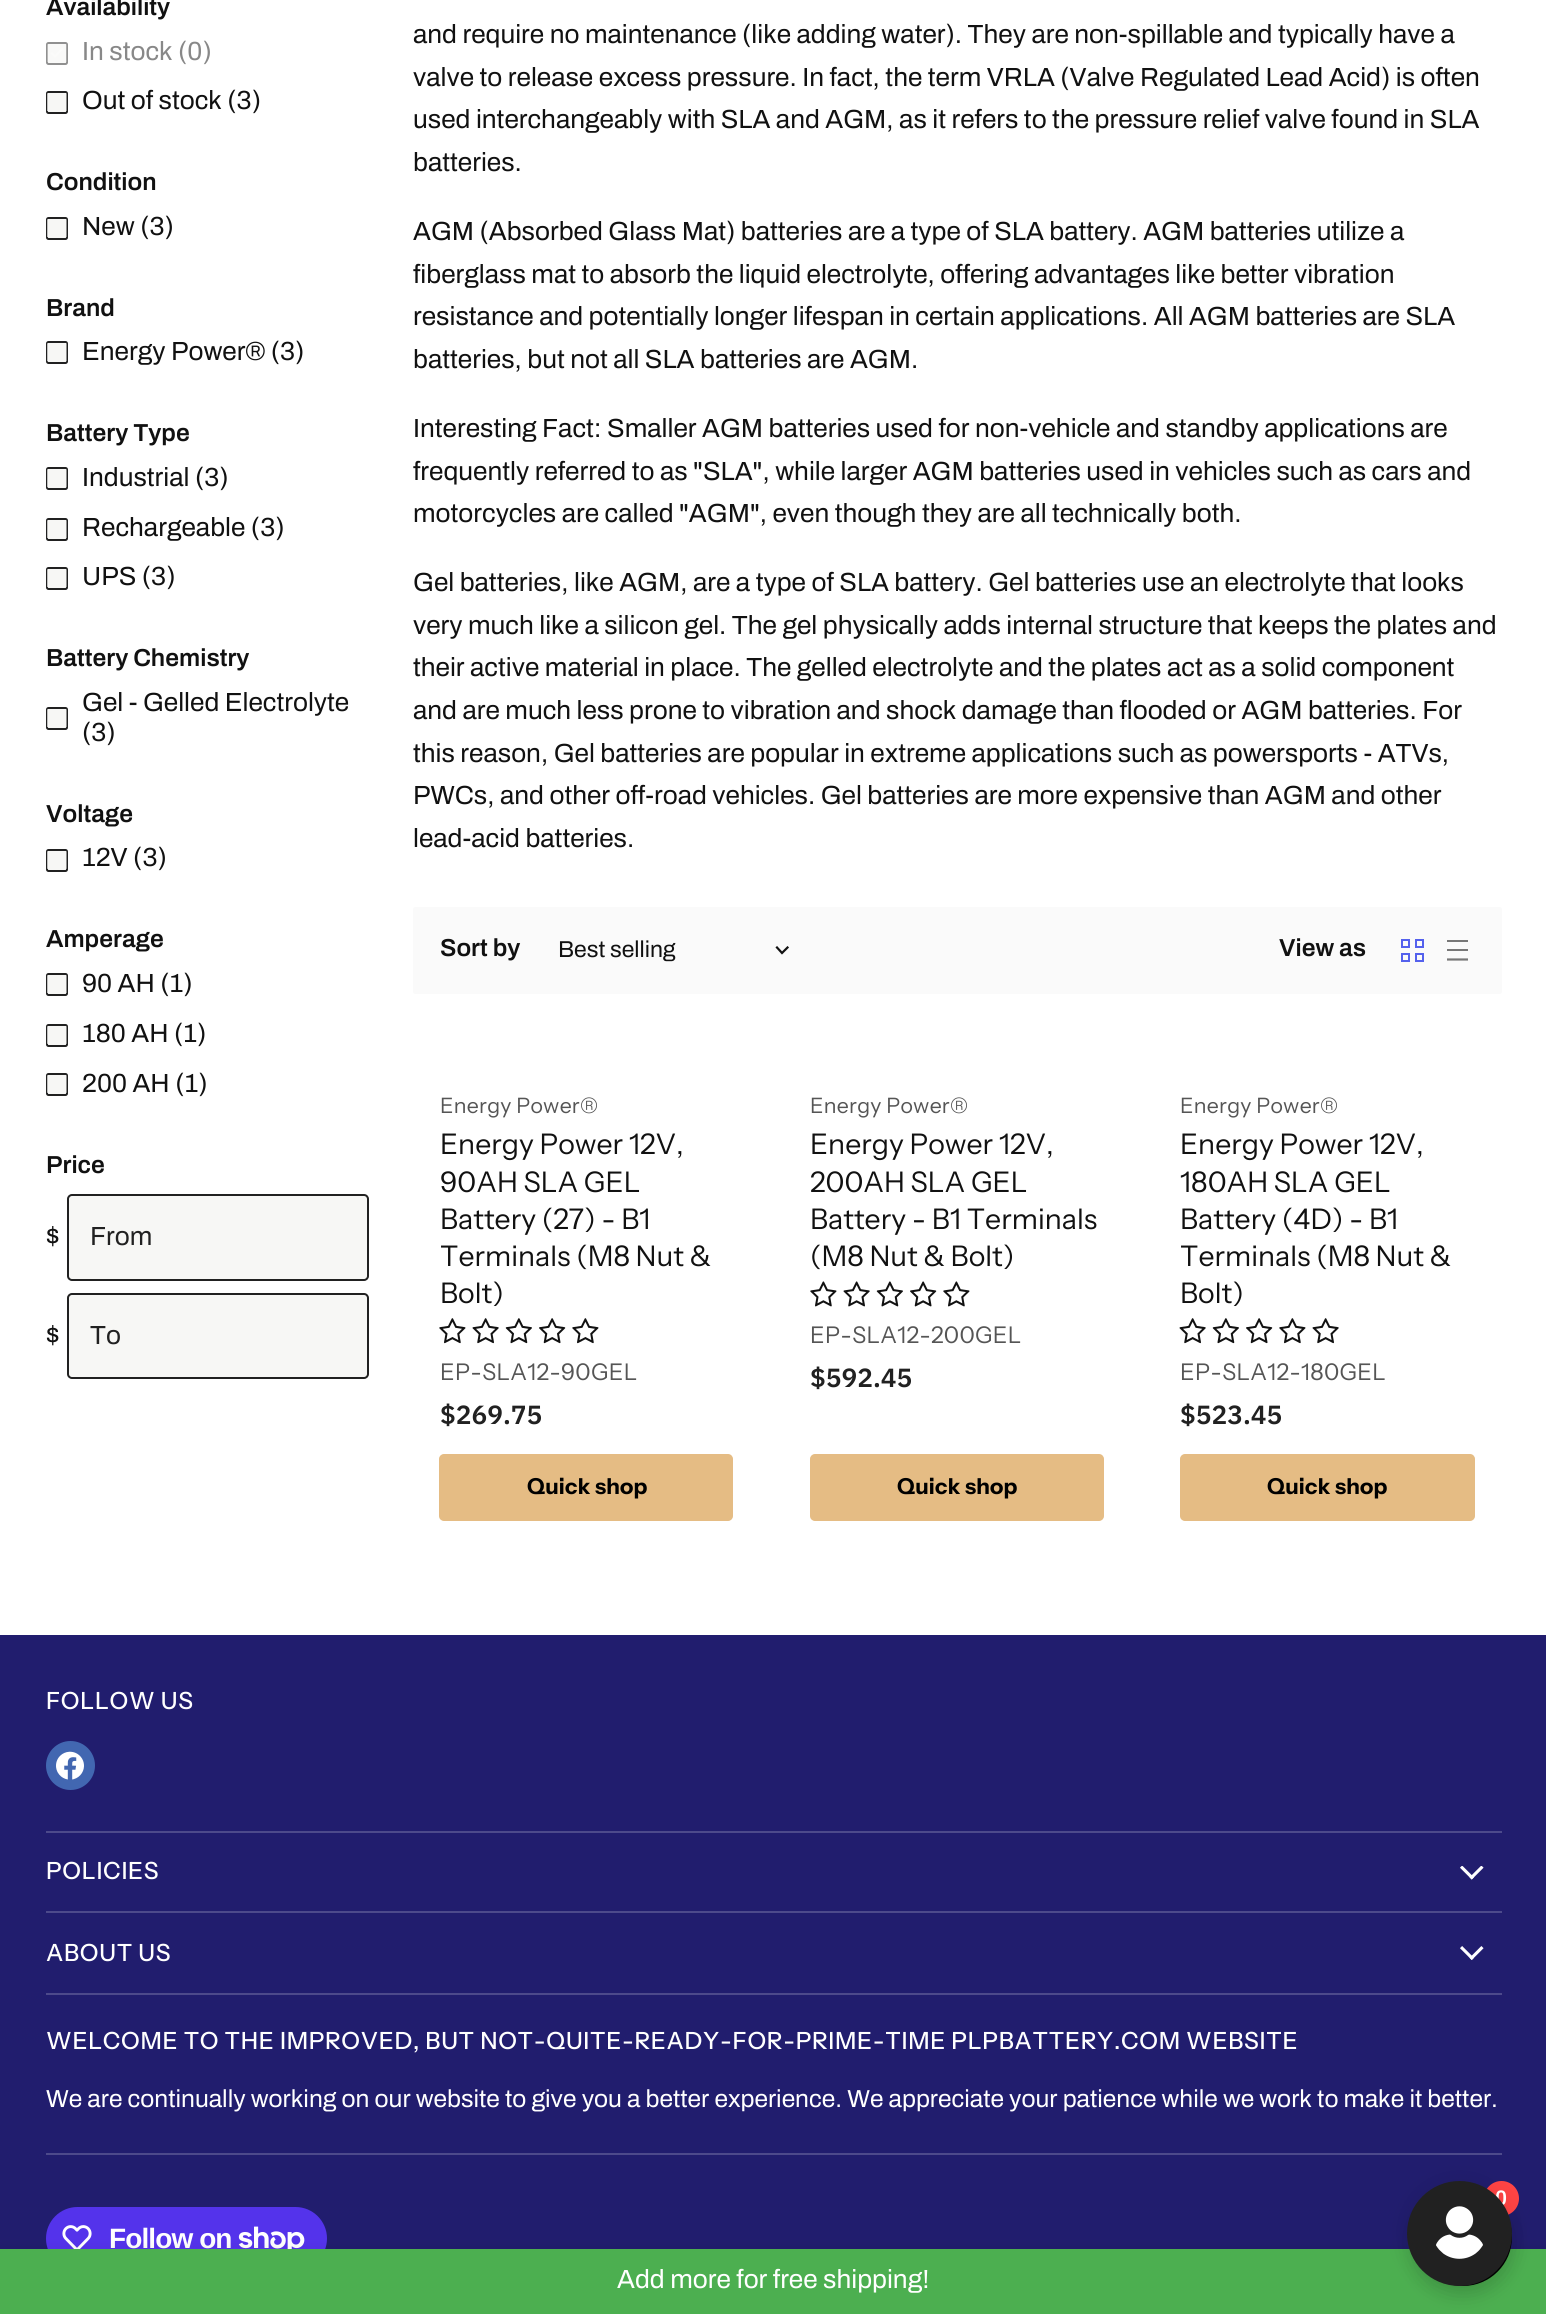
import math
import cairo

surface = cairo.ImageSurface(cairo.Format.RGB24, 1546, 2319)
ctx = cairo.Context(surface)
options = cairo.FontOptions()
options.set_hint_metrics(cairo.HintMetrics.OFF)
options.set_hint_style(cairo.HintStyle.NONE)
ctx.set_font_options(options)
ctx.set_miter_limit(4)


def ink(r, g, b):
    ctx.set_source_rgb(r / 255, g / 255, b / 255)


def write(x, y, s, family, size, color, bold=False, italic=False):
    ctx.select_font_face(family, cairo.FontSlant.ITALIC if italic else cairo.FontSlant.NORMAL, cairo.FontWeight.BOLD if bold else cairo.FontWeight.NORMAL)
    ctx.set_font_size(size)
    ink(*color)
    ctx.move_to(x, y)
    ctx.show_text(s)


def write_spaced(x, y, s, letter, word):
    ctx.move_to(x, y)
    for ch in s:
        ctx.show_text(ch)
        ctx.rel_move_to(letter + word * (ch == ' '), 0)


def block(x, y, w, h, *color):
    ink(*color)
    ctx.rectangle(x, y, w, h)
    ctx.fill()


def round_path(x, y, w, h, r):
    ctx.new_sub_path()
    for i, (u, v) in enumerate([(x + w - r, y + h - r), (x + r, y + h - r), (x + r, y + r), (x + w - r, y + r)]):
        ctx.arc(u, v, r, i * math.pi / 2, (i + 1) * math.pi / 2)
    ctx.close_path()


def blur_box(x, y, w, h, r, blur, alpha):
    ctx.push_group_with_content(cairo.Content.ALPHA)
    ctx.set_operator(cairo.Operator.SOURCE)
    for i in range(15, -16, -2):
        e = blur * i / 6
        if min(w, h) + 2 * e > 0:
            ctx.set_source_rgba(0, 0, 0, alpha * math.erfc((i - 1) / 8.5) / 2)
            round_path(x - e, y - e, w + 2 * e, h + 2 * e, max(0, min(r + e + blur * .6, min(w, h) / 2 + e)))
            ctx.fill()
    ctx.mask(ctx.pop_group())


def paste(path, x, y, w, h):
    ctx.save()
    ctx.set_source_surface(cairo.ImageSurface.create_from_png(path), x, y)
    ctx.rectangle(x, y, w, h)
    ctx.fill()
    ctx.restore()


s1 = dict(family="Archivo SemiBold", size=24.6, color=(17, 17, 17))
s2 = dict(family="Archivo", size=26.25, color=(136, 136, 136))
s3 = dict(family="Archivo", size=26.25, color=(17, 17, 17))
s4 = dict(family="Archivo", size=26.25, color=(33, 33, 33))
s5 = dict(family="Archivo", size=23, color=(17, 17, 17))
s6 = dict(family="Instrument Sans", size=28.4, color=(17, 17, 17))
s7 = dict(family="IBM Plex Sans SemiBold", size=26.25, color=(33, 33, 33))
s8 = dict(family="Archivo", size=24.6, color=(255, 255, 255))
s9 = dict(family="Archivo SemiBold", size=21, color=(255, 255, 255))
s10 = dict(family="Archivo", size=26.25, color=(255, 255, 255))

ink(255, 255, 255)
ctx.paint()
write(46, 15, "Availability", **s1)
ink(251, 251, 250)
round_path(47, 43, 20, 21, 1.5)
ctx.fill_preserve()
ink(144, 144, 144)
ctx.stroke()
paste("pic1.png", 47, 44, 20, 19)
write(82, 60, "In stock (0)", **s2)
ink(247, 247, 245)
round_path(47, 92, 20, 21, 1.5)
ctx.fill_preserve()
ink(33, 33, 33)
ctx.stroke()
paste("pic2.png", 47, 93, 20, 19)
write(82, 109, "Out of stock (3)", **s3)
write(46, 190, "Condition", **s1)
ink(247, 247, 245)
round_path(47, 218, 20, 21, 1.5)
ctx.fill_preserve()
ink(33, 33, 33)
ctx.stroke()
paste("pic2.png", 47, 219, 20, 19)
write(82, 235, "New (3)", **s3)
write(46, 316, "Brand", **s1)
ink(247, 247, 245)
round_path(47, 342, 20, 21, 1.5)
ctx.fill_preserve()
ink(33, 33, 33)
ctx.stroke()
paste("pic3.png", 47, 343, 20, 19)
write(82, 360, "Energy Power® (3)", **s3)
write(46, 441, "Battery Type", **s1)
ink(247, 247, 245)
round_path(47, 468, 20, 21, 1.5)
ctx.fill_preserve()
ink(33, 33, 33)
ctx.stroke()
paste("pic3.png", 47, 469, 20, 19)
write(82, 486, "Industrial (3)", **s3)
ink(247, 247, 245)
round_path(47, 519, 20, 21, 1.5)
ctx.fill_preserve()
ink(33, 33, 33)
ctx.stroke()
paste("pic2.png", 47, 520, 20, 19)
write(82, 536, "Rechargeable (3)", **s3)
ink(247, 247, 245)
round_path(47, 568, 20, 21, 1.5)
ctx.fill_preserve()
ink(33, 33, 33)
ctx.stroke()
paste("pic2.png", 47, 569, 20, 19)
write(82, 585, "UPS (3)", **s3)
write(46, 666, "Battery Chemistry", **s1)
ink(247, 247, 245)
round_path(47, 708, 20, 21, 1.5)
ctx.fill_preserve()
ink(33, 33, 33)
ctx.stroke()
paste("pic2.png", 47, 709, 20, 19)
write(82, 711, "Gel - Gelled Electrolyte", **s3)
write(82, 741, "(3)", **s3)
write(46, 822, "Voltage", **s1)
ink(247, 247, 245)
round_path(47, 850, 20, 21, 1.5)
ctx.fill_preserve()
ink(33, 33, 33)
ctx.stroke()
paste("pic4.png", 47, 851, 20, 18)
write(82, 866, "12V (3)", **s3)
write(46, 947, "Amperage", **s1)
ink(247, 247, 245)
round_path(47, 974, 20, 21, 1.5)
ctx.fill_preserve()
ink(33, 33, 33)
ctx.stroke()
paste("pic2.png", 47, 975, 20, 19)
write(82, 992, "90 AH (1)", **s3)
ink(247, 247, 245)
round_path(47, 1025, 20, 21, 1.5)
ctx.fill_preserve()
ink(33, 33, 33)
ctx.stroke()
paste("pic4.png", 47, 1026, 20, 18)
write(82, 1042, "180 AH (1)", **s3)
ink(247, 247, 245)
round_path(47, 1074, 20, 21, 1.5)
ctx.fill_preserve()
ink(33, 33, 33)
ctx.stroke()
paste("pic4.png", 47, 1075, 20, 18)
write(82, 1092, "200 AH (1)", **s3)
write(46, 1173, "Price", **s1)
write(46, 1245, "$", **s3)
ink(247, 247, 245)
round_path(68, 1195, 300, 85, 4)
ctx.fill_preserve()
ink(33, 33, 33)
ctx.stroke()
write(90, 1245, "From", **s4)
write(46, 1344, "$", **s3)
ink(247, 247, 245)
round_path(68, 1294, 300, 84, 4)
ctx.fill_preserve()
ink(33, 33, 33)
ctx.stroke()
write(90, 1344, "To", **s4)
write(413, 43, "and require no maintenance (like adding water). They are non-spillable and typically have a", **s3)
write(413, 86, "valve to release excess pressure. In fact, the term VRLA (Valve Regulated Lead Acid) is often", **s3)
write(413, 128, "used interchangeably with SLA and AGM, as it refers to the pressure relief valve found in SLA", **s3)
write(413, 171, "batteries.", **s3)
write(413, 240, "AGM (Absorbed Glass Mat) batteries are a type of SLA battery. AGM batteries utilize a", **s3)
write(413, 283, "fiberglass mat to absorb the liquid electrolyte, offering advantages like better vibration", **s3)
write(413, 325, "resistance and potentially longer lifespan in certain applications. All AGM batteries are SLA", **s3)
write(413, 368, "batteries, but not all SLA batteries are AGM.", **s3)
write(413, 437, "Interesting Fact: Smaller AGM batteries used for non-vehicle and standby applications are", **s3)
write(413, 480, "frequently referred to as \"SLA\", while larger AGM batteries used in vehicles such as cars and", **s3)
write(413, 522, "motorcycles are called \"AGM\", even though they are all technically both.", **s3)
write(413, 591, "Gel batteries, like AGM, are a type of SLA battery. Gel batteries use an electrolyte that looks", **s3)
write(413, 634, "very much like a silicon gel. The gel physically adds internal structure that keeps the plates and", **s3)
write(413, 676, "their active material in place. The gelled electrolyte and the plates act as a solid component", **s3)
write(413, 719, "and are much less prone to vibration and shock damage than flooded or AGM batteries. For", **s3)
write(413, 762, "this reason, Gel batteries are popular in extreme applications such as powersports - ATVs,", **s3)
write(413, 804, "PWCs, and other off-road vehicles. Gel batteries are more expensive than AGM and other", **s3)
write(413, 847, "lead-acid batteries.", **s3)
ink(250, 250, 250)
round_path(413, 907, 1089, 87, 2.5)
ctx.fill()
write(440, 956, "Sort by", **s1)
write(558, 957, "Best selling", **s5)
ctx.new_path()
ctx.move_to(782, 953)
ctx.line_to(787.5, 947.5)
ctx.move_to(782, 953)
ctx.line_to(777, 947.5)
ctx.set_line_width(2.2)
ctx.set_line_cap(cairo.LineCap.SQUARE)
ctx.stroke()
write(1279, 956, "View as", **s1)
ctx.rectangle(1402, 940, 7, 7)
ink(84, 97, 237)
ctx.set_line_width(2)
ctx.set_line_cap(cairo.LineCap.BUTT)
ctx.stroke()
ctx.rectangle(1416, 940, 7, 7)
ctx.stroke()
ctx.rectangle(1402, 954, 7, 7)
ctx.stroke()
ctx.rectangle(1416, 954, 7, 7)
ctx.stroke()
block(1447, 940, 21, 2, 119, 119, 119)
block(1447, 949, 21, 2, 119, 119, 119)
ctx.new_path()
ctx.move_to(1447, 959.5)
ctx.line_to(1468, 959.5)
ctx.set_line_width(2.2)
ctx.set_line_join(cairo.LineJoin.ROUND)
ctx.stroke()
ctx.select_font_face("Instrument Sans")
ctx.set_font_size(21.25)
ink(85, 85, 85)
write_spaced(440, 1113, "Energy Power®", 0.25, 0)
write(440, 1154, "Energy Power 12V,", **s6)
write(440, 1192, "90AH SLA GEL", **s6)
write(440, 1229, "Battery (27) - B1", **s6)
write(440, 1266, "Terminals (M8 Nut &", **s6)
write(440, 1303, "Bolt)", **s6)
paste("pic5.png", 439, 1318, 27, 26)
paste("pic6.png", 472, 1318, 27, 26)
paste("pic7.png", 505, 1318, 27, 26)
paste("pic8.png", 539, 1318, 27, 26)
paste("pic5.png", 572, 1318, 27, 26)
ctx.set_font_size(23)
ink(85, 85, 85)
write_spaced(440, 1380, "EP-SLA12-90GEL", 0.25, 0)
write(440, 1424, "$269.75", **s7)
ink(229, 188, 132)
round_path(440, 1455, 292, 65, 4)
ctx.fill_preserve()
ctx.set_line_width(2)
ctx.set_line_join(cairo.LineJoin.MITER)
ctx.stroke()
ctx.select_font_face("Instrument Sans", cairo.FontSlant.NORMAL, cairo.FontWeight.BOLD)
ctx.set_font_size(22)
ink(0, 0, 0)
write_spaced(527, 1494, "Quick shop", 0.25, 0)
ctx.select_font_face("Instrument Sans")
ctx.set_font_size(21.25)
ink(85, 85, 85)
write_spaced(810, 1113, "Energy Power®", 0.25, 0)
write(810, 1154, "Energy Power 12V,", **s6)
write(810, 1192, "200AH SLA GEL", **s6)
write(810, 1229, "Battery - B1 Terminals", **s6)
write(810, 1266, "(M8 Nut & Bolt)", **s6)
paste("pic9.png", 810, 1281, 27, 26)
paste("pic10.png", 843, 1281, 27, 26)
paste("pic11.png", 876, 1281, 27, 26)
paste("pic12.png", 910, 1281, 27, 26)
paste("pic9.png", 943, 1281, 27, 26)
ctx.set_font_size(23)
ink(85, 85, 85)
write_spaced(810, 1343, "EP-SLA12-200GEL", 0.25, 0)
write(810, 1387, "$592.45", **s7)
ink(229, 188, 132)
round_path(811, 1455, 292, 65, 4)
ctx.fill_preserve()
ctx.stroke()
ctx.select_font_face("Instrument Sans", cairo.FontSlant.NORMAL, cairo.FontWeight.BOLD)
ctx.set_font_size(22)
ink(0, 0, 0)
write_spaced(897, 1494, "Quick shop", 0.25, 0)
ctx.select_font_face("Instrument Sans")
ctx.set_font_size(21.25)
ink(85, 85, 85)
write_spaced(1180, 1113, "Energy Power®", 0.25, 0)
write(1180, 1154, "Energy Power 12V,", **s6)
write(1180, 1192, "180AH SLA GEL", **s6)
write(1180, 1229, "Battery (4D) - B1", **s6)
write(1180, 1266, "Terminals (M8 Nut &", **s6)
write(1180, 1303, "Bolt)", **s6)
paste("pic6.png", 1179, 1318, 27, 26)
paste("pic7.png", 1212, 1318, 27, 26)
paste("pic8.png", 1246, 1318, 27, 26)
paste("pic5.png", 1279, 1318, 27, 26)
paste("pic6.png", 1312, 1318, 27, 26)
ctx.set_font_size(23)
ink(85, 85, 85)
write_spaced(1180, 1380, "EP-SLA12-180GEL", 0.25, 0)
write(1180, 1424, "$523.45", **s7)
ink(229, 188, 132)
round_path(1181, 1455, 293, 65, 4)
ctx.fill_preserve()
ctx.stroke()
ctx.select_font_face("Instrument Sans", cairo.FontSlant.NORMAL, cairo.FontWeight.BOLD)
ctx.set_font_size(22)
ink(0, 0, 0)
write_spaced(1267, 1494, "Quick shop", 0.25, 0)
block(0, 1635, 1546, 614, 33, 29, 110)
block(46, 1831, 1456, 2, 77, 74, 139)
ctx.select_font_face("Instrument Sans Medium")
ctx.set_font_size(23.67)
ink(255, 255, 255)
write_spaced(46, 1709, "FOLLOW US", 0.7, 0)
ink(66, 103, 177)
ctx.new_path()
ctx.arc(70.5, 1765.5, 24.5, 0, 2 * math.pi)
ctx.fill()
paste("pic13.png", 56, 1751, 28, 29)
block(46, 1911, 1456, 2, 77, 74, 139)
ink(255, 255, 255)
write_spaced(46, 1879, "POLICIES", 0.7, 0)
paste("pic14.png", 1460, 1866, 24, 14)
block(46, 1993, 1456, 2, 77, 74, 139)
ink(255, 255, 255)
write_spaced(46, 1961, "ABOUT US", 0.7, 0)
paste("pic15.png", 1460, 1946, 24, 14)
block(46, 2153, 1456, 2, 77, 74, 139)
ink(255, 255, 255)
write_spaced(46, 2049, "WELCOME TO THE IMPROVED, BUT NOT-QUITE-READY-FOR-PRIME-TIME PLPBATTERY.COM WEBSITE", 0.7, 0)
write(46, 2107, "We are continually working on our website to give you a better experience. We appreciate your patience while we work to make it better.", **s8)
ink(84, 51, 235)
round_path(46, 2207, 281, 63, 31.5)
ctx.fill()
paste("pic16.png", 62, 2225, 30, 24)
ctx.select_font_face("Liberation Sans", cairo.FontSlant.NORMAL, cairo.FontWeight.BOLD)
ctx.set_font_size(28)
ink(255, 255, 255)
write_spaced(109, 2248, "Follow on", -0.9, 0)
paste("pic17.png", 238, 2226, 67, 23)
ink(0, 0, 0)
blur_box(0, 2252, 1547, 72, 0, 7, 0.1)
block(0, 2249, 1546, 65, 76, 175, 80)
block(0, 2314, 1546, 5, 255, 255, 255)
ink(0, 0, 0)
blur_box(1414, 2195, 98, 98, 49, 10.5, 0.15)
ink(0, 0, 0)
ctx.arc(1463, 2237, 49, 0, 2 * math.pi)
ctx.fill()
ink(255, 68, 68)
ctx.arc(1501.5, 2198.5, 17.5, 0, 2 * math.pi)
ctx.fill()
ink(0, 0, 0)
blur_box(1407, 2181, 105, 105, 52.5, 13, 0.08)
write(1495, 2205, "0", **s9)
ink(33, 33, 33)
ctx.new_path()
ctx.arc(1459.5, 2233.5, 52.5, 0, 2 * math.pi)
ctx.fill()
paste("pic18.png", 1436, 2206, 47, 53)
write(617, 2288, "Add more for free shipping!", **s10)
surface.write_to_png("screenshot.png")
